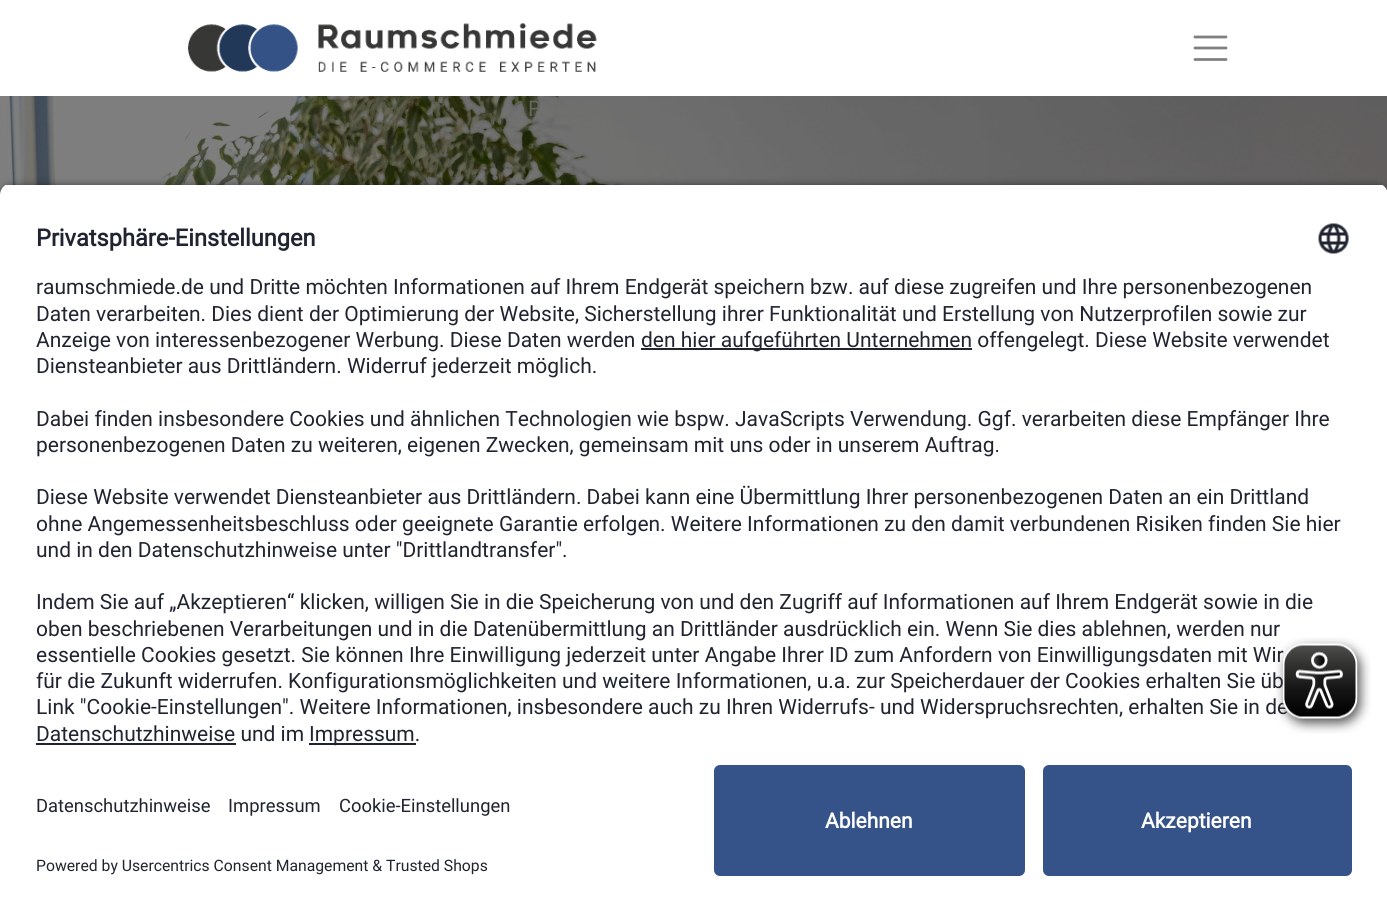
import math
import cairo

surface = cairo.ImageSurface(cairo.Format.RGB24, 1387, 911)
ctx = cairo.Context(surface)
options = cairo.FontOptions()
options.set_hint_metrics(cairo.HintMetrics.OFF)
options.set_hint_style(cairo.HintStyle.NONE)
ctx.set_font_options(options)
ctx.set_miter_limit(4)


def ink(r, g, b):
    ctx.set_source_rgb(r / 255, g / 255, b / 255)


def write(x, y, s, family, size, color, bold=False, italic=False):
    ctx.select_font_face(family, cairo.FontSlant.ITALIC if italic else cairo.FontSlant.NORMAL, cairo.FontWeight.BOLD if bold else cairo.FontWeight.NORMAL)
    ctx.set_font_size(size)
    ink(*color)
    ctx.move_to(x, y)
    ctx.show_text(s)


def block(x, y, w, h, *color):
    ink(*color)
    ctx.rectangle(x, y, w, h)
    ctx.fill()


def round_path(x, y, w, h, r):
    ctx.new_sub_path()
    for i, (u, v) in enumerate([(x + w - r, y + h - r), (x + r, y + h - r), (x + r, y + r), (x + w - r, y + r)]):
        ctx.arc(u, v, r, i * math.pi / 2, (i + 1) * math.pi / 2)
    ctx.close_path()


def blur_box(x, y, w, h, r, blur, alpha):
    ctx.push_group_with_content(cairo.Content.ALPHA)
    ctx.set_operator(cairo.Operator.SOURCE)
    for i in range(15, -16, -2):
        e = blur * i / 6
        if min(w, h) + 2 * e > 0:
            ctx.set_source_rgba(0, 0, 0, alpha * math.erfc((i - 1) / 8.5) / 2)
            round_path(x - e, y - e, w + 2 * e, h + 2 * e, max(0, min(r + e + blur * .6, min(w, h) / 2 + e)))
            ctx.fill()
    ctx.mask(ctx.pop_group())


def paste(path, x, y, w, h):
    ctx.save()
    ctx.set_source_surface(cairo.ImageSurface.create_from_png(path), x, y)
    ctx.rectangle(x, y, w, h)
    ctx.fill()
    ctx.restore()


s1 = dict(family="Poppins", size=22, color=(100, 102, 96))
s2 = dict(family="Roboto", size=23.6, color=(32, 36, 48), bold=True)
s3 = dict(family="Roboto", size=21, color=(32, 36, 48))
s4 = dict(family="Roboto", size=18.4, color=(32, 36, 48))
s5 = dict(family="Roboto", size=15.75, color=(32, 36, 48))
s6 = dict(family="Roboto", size=21, color=(255, 255, 255), bold=True)

ink(255, 255, 255)
ctx.paint()
paste("pic1.png", 188, 23, 409, 49)
ctx.new_path()
ctx.move_to(1195, 37)
ctx.line_to(1226, 37)
ctx.move_to(1195, 48)
ctx.line_to(1226, 48)
ctx.move_to(1195, 59.5)
ctx.line_to(1226, 59.5)
ink(128, 128, 128)
ctx.set_line_width(2.8)
ctx.set_line_cap(cairo.LineCap.ROUND)
ctx.stroke()
paste("pic2.png", 0, 96, 1387, 99)
write(528, 116, "P", **s1)
ink(0, 0, 0)
blur_box(0, 188, 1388, 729, 12, 5, 0.8)
ctx.save()
ctx.new_path()
ctx.move_to(12, 183)
ctx.line_to(1376, 183)
ctx.curve_to(1382.5, 183, 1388, 188.5, 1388, 195)
ctx.line_to(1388, 753)
ctx.line_to(0, 753)
ctx.line_to(0, 195)
ctx.curve_to(0, 188.5, 5.5, 183, 12, 183)
ctx.close_path()
ctx.clip()
block(0, 185, 1387, 568, 255, 255, 255)
ctx.restore()
write(36, 246, "Privatsphäre-Einstellungen", **s2)
paste("pic3.png", 1318, 223, 31, 31)
write(36, 294, "raumschmiede.de und Dritte möchten Informationen auf Ihrem Endgerät speichern bzw. auf diese zugreifen und Ihre personenbezogenen", **s3)
write(36, 321, "Daten verarbeiten. Dies dient der Optimierung der Website, Sicherstellung ihrer Funktionalität und Erstellung von Nutzerprofilen sowie zur", **s3)
write(36, 347, "Anzeige von interessenbezogener Werbung. Diese Daten werden", **s3)
block(641, 348, 331, 2, 32, 36, 48)
write(641, 347, "den hier aufgeführten Unternehmen offengelegt. Diese Website verwendet", **s3)
write(36, 373, "Diensteanbieter aus Drittländern. Widerruf jederzeit möglich.", **s3)
write(36, 426, "Dabei finden insbesondere Cookies und ähnlichen Technologien wie bspw. JavaScripts Verwendung. Ggf. verarbeiten diese Empfänger Ihre", **s3)
write(36, 452, "personenbezogenen Daten zu weiteren, eigenen Zwecken, gemeinsam mit uns oder in unserem Auftrag.", **s3)
write(36, 504, "Diese Website verwendet Diensteanbieter aus Drittländern. Dabei kann eine Übermittlung Ihrer personenbezogenen Daten an ein Drittland", **s3)
write(36, 531, "ohne Angemessenheitsbeschluss oder geeignete Garantie erfolgen. Weitere Informationen zu den damit verbundenen Risiken finden Sie hier", **s3)
write(36, 557, "und in den Datenschutzhinweise unter \"Drittlandtransfer\".", **s3)
write(36, 609, "Indem Sie auf „Akzeptieren“ klicken, willigen Sie in die Speicherung von und den Zugriff auf Informationen auf Ihrem Endgerät sowie in die", **s3)
write(36, 636, "oben beschriebenen Verarbeitungen und in die Datenübermittlung an Drittländer ausdrücklich ein. Wenn Sie dies ablehnen, werden nur", **s3)
write(36, 662, "essentielle Cookies gesetzt. Sie können Ihre Einwilligung jederzeit unter Angabe Ihrer ID zum Anfordern von Einwilligungsdaten mit Wir", **s3)
write(36, 688, "für die Zukunft widerrufen. Konfigurationsmöglichkeiten und weitere Informationen, u.a. zur Speicherdauer der Cookies erhalten Sie üb", **s3)
write(36, 714, "Link \"Cookie-Einstellungen\". Weitere Informationen, insbesondere auch zu Ihren Widerrufs- und Widerspruchsrechten, erhalten Sie in de", **s3)
write(36, 741, "Datenschutzhinweise und im", **s3)
block(36, 743, 200, 2, 32, 36, 48)
block(309, 743, 107, 2, 32, 36, 48)
write(309, 741, "Impressum.", **s3)
block(0, 753, 1387, 158, 255, 255, 255)
write(36, 812, "Datenschutzhinweise", **s4)
write(228, 812, "Impressum", **s4)
write(339, 812, "Cookie-Einstellungen", **s4)
write(36, 871, "Powered by Usercentrics Consent Management & Trusted Shops", **s5)
ink(53, 83, 136)
round_path(714, 765, 311, 111, 6)
ctx.fill()
write(825, 828, "Ablehnen", **s6)
ink(53, 83, 136)
round_path(1043, 765, 309, 111, 6)
ctx.fill()
write(1141, 828, "Akzeptieren", **s6)
paste("pic4.png", 1275, 637, 96, 97)
surface.write_to_png("screenshot.png")
